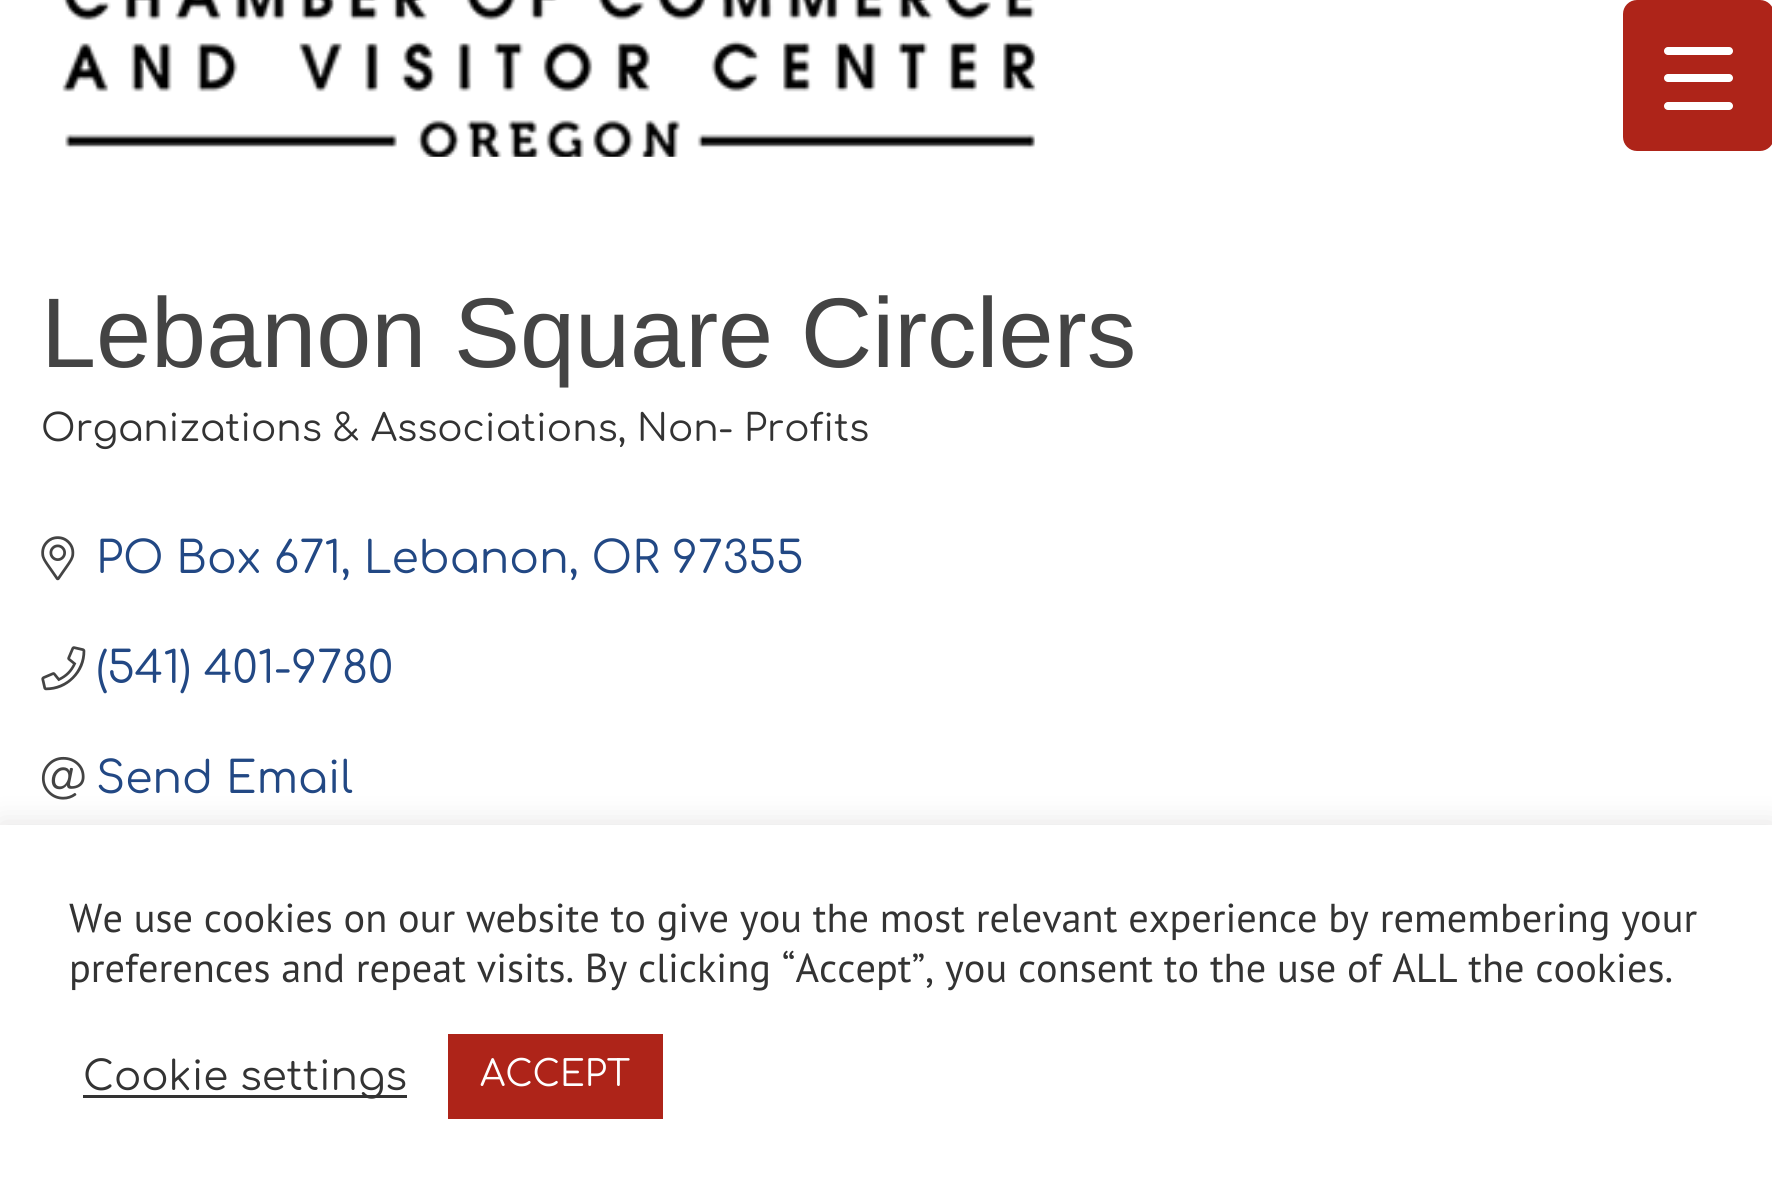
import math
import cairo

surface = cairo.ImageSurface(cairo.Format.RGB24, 1772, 1201)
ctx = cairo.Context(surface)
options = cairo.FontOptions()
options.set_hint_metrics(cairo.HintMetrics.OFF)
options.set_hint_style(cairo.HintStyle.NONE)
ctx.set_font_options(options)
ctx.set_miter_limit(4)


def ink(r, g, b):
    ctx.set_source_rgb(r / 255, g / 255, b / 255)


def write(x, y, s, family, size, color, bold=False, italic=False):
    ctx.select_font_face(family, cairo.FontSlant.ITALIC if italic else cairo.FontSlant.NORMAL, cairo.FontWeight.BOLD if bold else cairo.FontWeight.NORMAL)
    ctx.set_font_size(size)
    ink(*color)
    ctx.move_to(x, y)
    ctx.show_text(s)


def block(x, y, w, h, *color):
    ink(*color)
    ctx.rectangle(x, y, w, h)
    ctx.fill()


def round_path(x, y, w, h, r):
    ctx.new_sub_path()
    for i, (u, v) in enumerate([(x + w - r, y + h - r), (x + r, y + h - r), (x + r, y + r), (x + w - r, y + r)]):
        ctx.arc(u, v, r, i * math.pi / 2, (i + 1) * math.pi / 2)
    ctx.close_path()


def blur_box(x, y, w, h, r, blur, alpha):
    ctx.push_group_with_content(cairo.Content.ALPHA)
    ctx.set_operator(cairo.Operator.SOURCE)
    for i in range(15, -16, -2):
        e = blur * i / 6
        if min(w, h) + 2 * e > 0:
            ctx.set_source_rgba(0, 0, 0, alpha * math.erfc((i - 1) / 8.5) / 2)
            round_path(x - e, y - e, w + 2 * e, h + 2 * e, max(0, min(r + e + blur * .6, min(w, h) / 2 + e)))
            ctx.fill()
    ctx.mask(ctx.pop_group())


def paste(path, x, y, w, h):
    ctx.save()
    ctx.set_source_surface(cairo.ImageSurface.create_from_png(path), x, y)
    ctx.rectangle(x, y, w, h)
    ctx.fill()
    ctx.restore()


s1 = dict(family="Liberation Sans", size=99, color=(68, 68, 68))
s2 = dict(family="Comfortaa", size=37.4, color=(51, 51, 51))
s3 = dict(family="Comfortaa", size=44, color=(34, 72, 132))
s4 = dict(family="PT Sans", size=40.35, color=(51, 51, 51))
s5 = dict(family="Comfortaa", size=40.35, color=(51, 51, 51))
s6 = dict(family="Comfortaa", size=35.75, color=(255, 255, 255))

ink(255, 255, 255)
ctx.paint()
ink(174, 36, 25)
round_path(1623, 0, 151, 151, 14)
ctx.fill()
ink(255, 255, 255)
round_path(1664, 74, 69, 8, 4)
ctx.fill()
round_path(1664, 47, 69, 8, 4)
ctx.fill()
round_path(1664, 102, 69, 8, 4)
ctx.fill()
paste("pic1.png", 62, 0, 975, 157)
write(41, 367, "Lebanon Square Circlers", **s1)
write(41, 441, "Organizations & Associations, Non- Profits", **s2)
paste("pic2.png", 41, 536, 34, 45)
write(96, 573, "PO Box 671, Lebanon, OR 97355", **s3)
paste("pic3.png", 41, 646, 45, 45)
write(96, 683, "(541) 401-9780", **s3)
paste("pic4.png", 41, 756, 44, 44)
write(96, 793, "Send Email", **s3)
ink(172, 171, 171)
blur_box(0, 822, 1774, 377, 0, 14, 0.3)
block(0, 825, 1772, 376, 255, 255, 255)
write(69, 932, "We use cookies on our website to give you the most relevant experience by remembering your", **s4)
write(69, 982, "preferences and repeat visits. By clicking “Accept”, you consent to the use of ALL the cookies.", **s4)
block(83, 1095, 324, 3, 51, 51, 51)
write(83, 1090, "Cookie settings", **s5)
block(448, 1034, 215, 85, 174, 36, 25)
write(480, 1086, "ACCEPT", **s6)
surface.write_to_png("screenshot.png")
